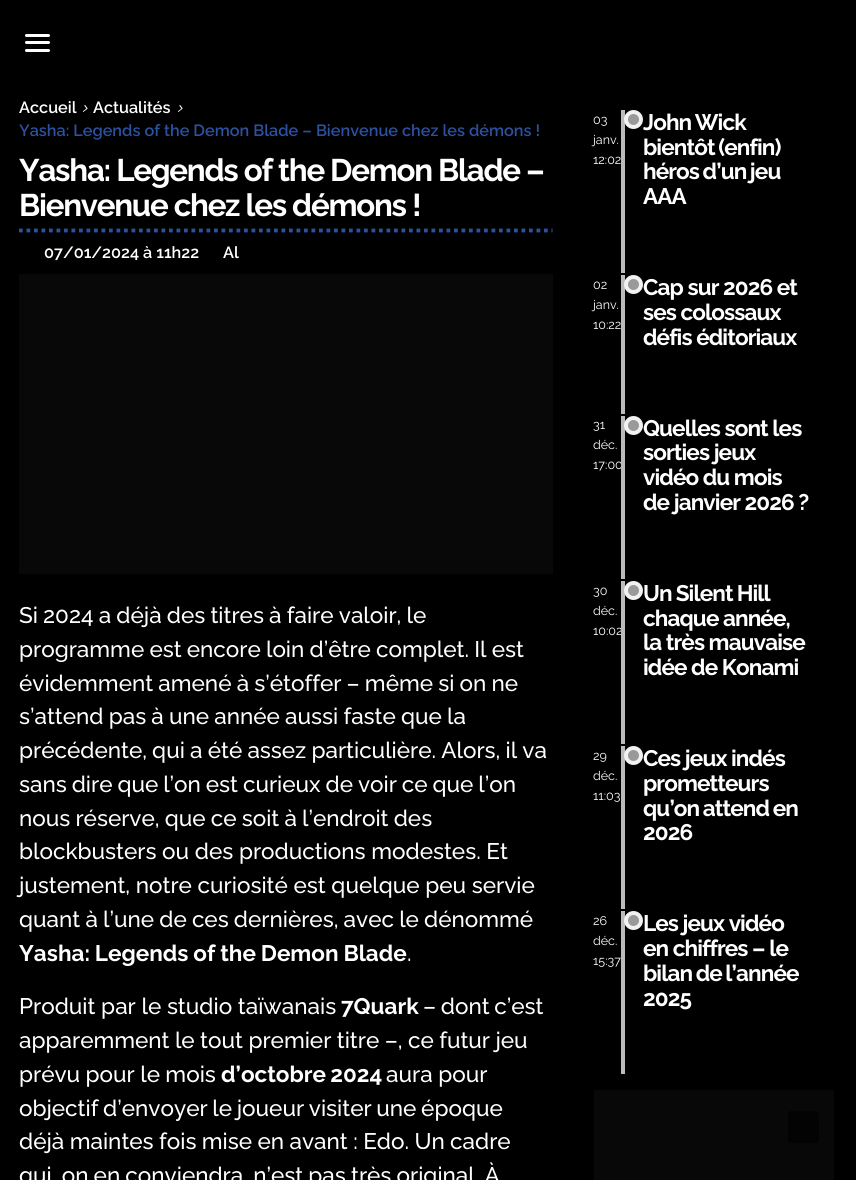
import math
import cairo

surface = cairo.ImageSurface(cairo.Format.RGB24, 856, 1180)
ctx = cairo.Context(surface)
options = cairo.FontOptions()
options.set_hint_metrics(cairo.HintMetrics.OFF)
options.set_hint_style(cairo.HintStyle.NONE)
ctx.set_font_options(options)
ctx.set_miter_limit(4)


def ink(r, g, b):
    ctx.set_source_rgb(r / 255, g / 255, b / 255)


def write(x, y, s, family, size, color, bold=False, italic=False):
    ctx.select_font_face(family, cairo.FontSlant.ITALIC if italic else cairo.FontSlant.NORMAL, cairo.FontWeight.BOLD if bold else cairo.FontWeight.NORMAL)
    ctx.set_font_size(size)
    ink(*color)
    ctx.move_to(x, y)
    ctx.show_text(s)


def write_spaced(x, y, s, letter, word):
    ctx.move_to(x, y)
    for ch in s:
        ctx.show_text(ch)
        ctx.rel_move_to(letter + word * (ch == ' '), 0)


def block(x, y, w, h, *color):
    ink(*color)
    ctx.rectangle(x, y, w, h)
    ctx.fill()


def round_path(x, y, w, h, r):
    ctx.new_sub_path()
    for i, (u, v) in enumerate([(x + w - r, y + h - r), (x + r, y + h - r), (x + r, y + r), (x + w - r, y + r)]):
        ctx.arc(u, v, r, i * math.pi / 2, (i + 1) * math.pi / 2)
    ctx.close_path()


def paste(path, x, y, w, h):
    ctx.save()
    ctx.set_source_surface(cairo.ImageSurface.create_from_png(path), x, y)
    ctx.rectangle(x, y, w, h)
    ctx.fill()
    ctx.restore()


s1 = dict(family="Raleway SemiBold", size=16.25, color=(255, 255, 255))
s2 = dict(family="Raleway SemiBold", size=16.25, color=(44, 81, 159))
s3 = dict(family="Raleway Medium", size=22.5, color=(255, 255, 255))
s4 = dict(family="Raleway", size=22.5, color=(255, 255, 255), bold=True)
s5 = dict(family="Raleway", size=12.5, color=(255, 255, 255))

ink(0, 0, 0)
ctx.paint()
ink(255, 255, 255)
round_path(25, 34, 25, 3, 1.5)
ctx.fill()
round_path(25, 41, 25, 3, 1.5)
ctx.fill()
round_path(25, 49, 25, 3, 1.5)
ctx.fill()
write(19, 113, "Accueil", **s1)
paste("pic1.png", 82, 105, 6, 7)
write(93, 113, "Actualités", **s1)
paste("pic1.png", 177, 105, 6, 7)
write(19, 136, "Yasha: Legends of the Demon Blade – Bienvenue chez les démons !", **s2)
ctx.new_path()
ctx.move_to(19, 230.5)
ctx.line_to(552.5, 230.5)
ctx.set_line_width(3.8)
ctx.set_dash([3.75, 3.75])
ctx.stroke()
ctx.select_font_face("Raleway", cairo.FontSlant.NORMAL, cairo.FontWeight.BOLD)
ctx.set_font_size(31.25)
ink(255, 255, 255)
write_spaced(19, 181, "Yasha: Legends of the Demon Blade –", -1.25, 0)
write_spaced(19, 216, "Bienvenue chez les démons !", -1.25, 0)
write(44, 258, "07/01/2024 à 11h22", **s1)
write(223, 258, "Al", **s1)
block(19, 274, 534, 300, 8, 8, 8)
ctx.select_font_face("Raleway Medium")
ctx.set_font_size(22.5)
ink(255, 255, 255)
write_spaced(19, 623, "Si 2024 a déjà des titres à faire valoir, le", 0, -0.5)
write_spaced(19, 657, "programme est encore loin d’être complet. Il est", 0, -0.5)
write_spaced(19, 691, "évidemment amené à s’étoffer – même si on ne", 0, -0.5)
write_spaced(19, 724, "s’attend pas à une année aussi faste que la", 0, -0.5)
write_spaced(19, 758, "précédente, qui a été assez particulière. Alors, il va", 0, -0.5)
write_spaced(19, 792, "sans dire que l’on est curieux de voir ce que l’on", 0, -0.75)
write_spaced(19, 826, "nous réserve, que ce soit à l’endroit des", 0, -0.5)
write(19, 859, "blockbusters ou des productions modestes. Et", **s3)
write(19, 893, "justement, notre curiosité est quelque peu servie", **s3)
write_spaced(19, 927, "quant à l’une de ces dernières, avec le dénommé", 0, -0.5)
ctx.select_font_face("Raleway", cairo.FontSlant.NORMAL, cairo.FontWeight.BOLD)
write_spaced(19, 961, "Yasha: Legends of the Demon Blade", 0, -0.5)
write(407, 961, ".", **s3)
write(19, 1014, "Produit par le studio taïwanais", **s3)
write(341, 1014, "7Quark", **s4)
ctx.select_font_face("Raleway Medium")
write_spaced(423, 1014, "– dont c’est", 0, -1)
write_spaced(19, 1048, "apparemment le tout premier titre –, ce futur jeu", 0, -0.25)
write_spaced(19, 1082, "prévu pour le mois", 0, -0.25)
ctx.select_font_face("Raleway", cairo.FontSlant.NORMAL, cairo.FontWeight.BOLD)
write_spaced(221, 1082, "d’octobre 2024", 0, -1)
write(386, 1082, "aura pour", **s3)
write_spaced(19, 1116, "objectif d’envoyer le joueur visiter une époque", 0, -1)
write_spaced(19, 1149, "déjà maintes fois mise en avant : Edo. Un cadre", 0, -0.25)
write_spaced(19, 1183, "qui, on en conviendra, n’est pas très original. À", 0, -0.5)
write(593, 124, "03", **s5)
write(593, 144, "janv.", **s5)
write(593, 164, "12:02", **s5)
block(621, 110, 4, 163, 187, 187, 187)
ink(153, 153, 153)
ctx.new_path()
ctx.arc(633.5, 119.5, 7.5, 0, 2 * math.pi)
ctx.fill_preserve()
ink(241, 241, 241)
ctx.set_line_width(4)
ctx.set_dash([])
ctx.stroke()
ctx.select_font_face("Raleway", cairo.FontSlant.NORMAL, cairo.FontWeight.BOLD)
ctx.set_font_size(22.5)
ink(255, 255, 255)
write_spaced(643, 130, "John Wick", -0.9, -1)
write_spaced(643, 155, "bientôt (enfin)", -0.9, -1)
write_spaced(643, 179, "héros d’un jeu", -0.9, -1)
write_spaced(643, 204, "AAA", -0.9, 0)
write(593, 289, "02", **s5)
write(593, 309, "janv.", **s5)
write(593, 329, "10:22", **s5)
block(621, 275, 4, 139, 187, 187, 187)
ink(153, 153, 153)
ctx.new_path()
ctx.arc(633.5, 284.5, 7.5, 0, 2 * math.pi)
ctx.fill_preserve()
ink(241, 241, 241)
ctx.stroke()
ctx.select_font_face("Raleway", cairo.FontSlant.NORMAL, cairo.FontWeight.BOLD)
ctx.set_font_size(22.5)
ink(255, 255, 255)
write_spaced(643, 295, "Cap sur 2026 et", -0.9, 0)
write_spaced(643, 320, "ses colossaux", -0.9, 0)
write_spaced(643, 345, "défis éditoriaux", -0.9, 0)
write(593, 429, "31", **s5)
write(593, 449, "déc.", **s5)
write(593, 469, "17:00", **s5)
block(621, 416, 4, 163, 187, 187, 187)
ink(153, 153, 153)
ctx.new_path()
ctx.arc(633.5, 425.5, 7.5, 0, 2 * math.pi)
ctx.fill_preserve()
ink(241, 241, 241)
ctx.stroke()
ctx.select_font_face("Raleway", cairo.FontSlant.NORMAL, cairo.FontWeight.BOLD)
ctx.set_font_size(22.5)
ink(255, 255, 255)
write_spaced(643, 436, "Quelles sont les", -0.9, 0)
write_spaced(643, 460, "sorties jeux", -0.9, 0)
write_spaced(643, 485, "vidéo du mois", -0.9, 0)
write_spaced(643, 510, "de janvier 2026 ?", -0.9, 0)
write(593, 595, "30", **s5)
write(593, 615, "déc.", **s5)
write(593, 635, "10:02", **s5)
block(621, 581, 4, 163, 187, 187, 187)
ink(153, 153, 153)
ctx.new_path()
ctx.arc(633.5, 590.5, 7.5, 0, 2 * math.pi)
ctx.fill_preserve()
ink(241, 241, 241)
ctx.stroke()
ctx.select_font_face("Raleway", cairo.FontSlant.NORMAL, cairo.FontWeight.BOLD)
ctx.set_font_size(22.5)
ink(255, 255, 255)
write_spaced(643, 601, "Un Silent Hill", -0.9, -0.5)
write_spaced(643, 626, "chaque année,", -0.9, 0)
write_spaced(643, 650, "la très mauvaise", -0.9, 0)
write_spaced(643, 675, "idée de Konami", -0.9, 0)
write(593, 760, "29", **s5)
write(593, 780, "déc.", **s5)
write(593, 800, "11:03", **s5)
block(621, 746, 4, 163, 187, 187, 187)
ink(153, 153, 153)
ctx.new_path()
ctx.arc(633.5, 755.5, 7.5, 0, 2 * math.pi)
ctx.fill_preserve()
ink(241, 241, 241)
ctx.stroke()
ctx.select_font_face("Raleway", cairo.FontSlant.NORMAL, cairo.FontWeight.BOLD)
ctx.set_font_size(22.5)
ink(255, 255, 255)
write_spaced(643, 766, "Ces jeux indés", -0.9, 0)
write_spaced(643, 791, "prometteurs", -0.9, 0)
write_spaced(643, 816, "qu’on attend en", -0.9, -1)
write_spaced(643, 840, "2026", -0.9, 0)
write(593, 925, "26", **s5)
write(593, 945, "déc.", **s5)
write(593, 965, "15:37", **s5)
block(621, 911, 4, 163, 187, 187, 187)
ink(153, 153, 153)
ctx.new_path()
ctx.arc(633.5, 920.5, 7.5, 0, 2 * math.pi)
ctx.fill_preserve()
ink(241, 241, 241)
ctx.stroke()
ctx.select_font_face("Raleway", cairo.FontSlant.NORMAL, cairo.FontWeight.BOLD)
ctx.set_font_size(22.5)
ink(255, 255, 255)
write_spaced(643, 931, "Les jeux vidéo", -0.9, 0)
write_spaced(643, 956, "en chiffres – le", -0.9, 0)
write_spaced(643, 981, "bilan de l’année", -0.9, -1)
write_spaced(643, 1006, "2025", -0.9, 0)
block(594, 1090, 240, 90, 8, 8, 8)
ink(3, 3, 3)
round_path(788, 1111, 31, 32, 2.5)
ctx.fill()
surface.write_to_png("screenshot.png")
